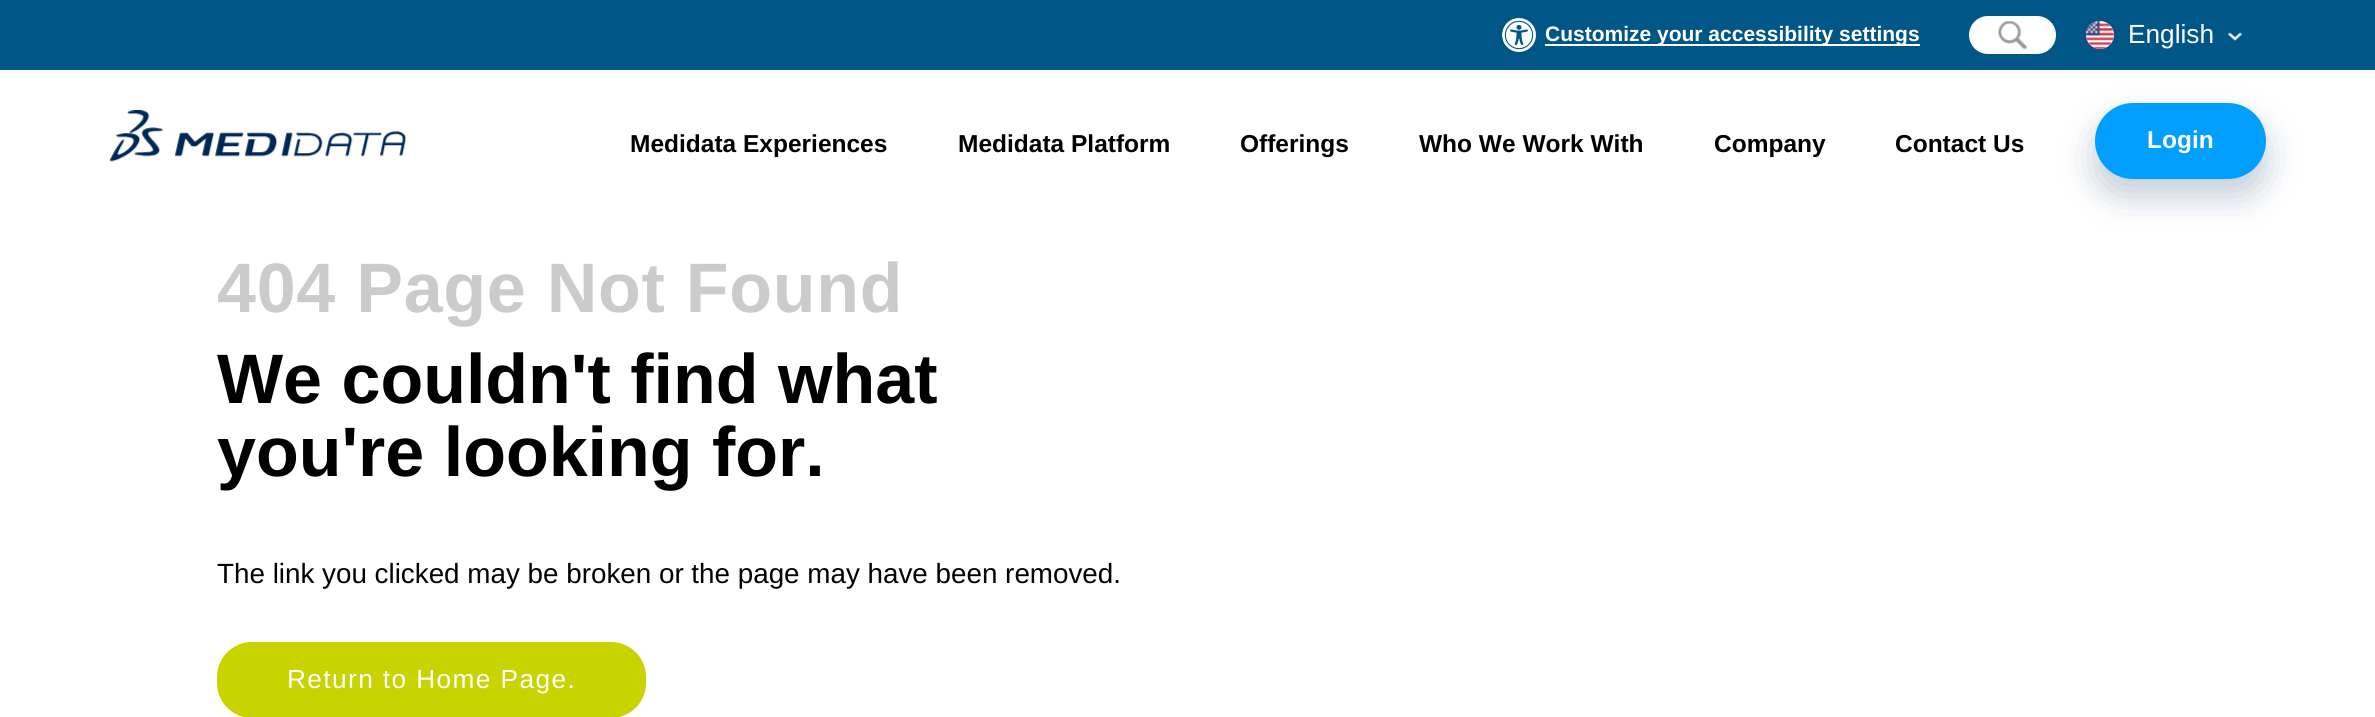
import math
import cairo

surface = cairo.ImageSurface(cairo.Format.RGB24, 2375, 717)
ctx = cairo.Context(surface)
options = cairo.FontOptions()
options.set_hint_metrics(cairo.HintMetrics.OFF)
options.set_hint_style(cairo.HintStyle.NONE)
ctx.set_font_options(options)
ctx.set_miter_limit(4)


def ink(r, g, b):
    ctx.set_source_rgb(r / 255, g / 255, b / 255)


def write(x, y, s, family, size, color, bold=False, italic=False):
    ctx.select_font_face(family, cairo.FontSlant.ITALIC if italic else cairo.FontSlant.NORMAL, cairo.FontWeight.BOLD if bold else cairo.FontWeight.NORMAL)
    ctx.set_font_size(size)
    ink(*color)
    ctx.move_to(x, y)
    ctx.show_text(s)


def write_spaced(x, y, s, letter, word):
    ctx.move_to(x, y)
    for ch in s:
        ctx.show_text(ch)
        ctx.rel_move_to(letter + word * (ch == ' '), 0)


def block(x, y, w, h, *color):
    ink(*color)
    ctx.rectangle(x, y, w, h)
    ctx.fill()


def round_path(x, y, w, h, r):
    ctx.new_sub_path()
    for i, (u, v) in enumerate([(x + w - r, y + h - r), (x + r, y + h - r), (x + r, y + r), (x + w - r, y + r)]):
        ctx.arc(u, v, r, i * math.pi / 2, (i + 1) * math.pi / 2)
    ctx.close_path()


def blur_box(x, y, w, h, r, blur, alpha):
    ctx.push_group_with_content(cairo.Content.ALPHA)
    ctx.set_operator(cairo.Operator.SOURCE)
    for i in range(15, -16, -2):
        e = blur * i / 6
        if min(w, h) + 2 * e > 0:
            ctx.set_source_rgba(0, 0, 0, alpha * math.erfc((i - 1) / 8.5) / 2)
            round_path(x - e, y - e, w + 2 * e, h + 2 * e, max(0, min(r + e + blur * .6, min(w, h) / 2 + e)))
            ctx.fill()
    ctx.mask(ctx.pop_group())


def paste(path, x, y, w, h):
    ctx.save()
    ctx.set_source_surface(cairo.ImageSurface.create_from_png(path), x, y)
    ctx.rectangle(x, y, w, h)
    ctx.fill()
    ctx.restore()


s1 = dict(family="Liberation Sans", size=21, color=(255, 255, 255), bold=True)
s2 = dict(family="Liberation Sans", size=26.25, color=(255, 255, 255))
s3 = dict(family="Liberation Sans", size=24.5, color=(0, 0, 0), bold=True)
s4 = dict(family="Liberation Sans", size=24.5, color=(255, 255, 255), bold=True)
s5 = dict(family="Liberation Sans", size=70, color=(0, 0, 0), bold=True)
s6 = dict(family="Liberation Sans", size=27.8, color=(0, 0, 0))

ink(255, 255, 255)
ctx.paint()
ink(0, 40, 85)
blur_box(2095, 121, 171, 75, 37.5, 17.5, 0.24)
block(0, 0, 2375, 70, 0, 86, 134)
paste("pic1.png", 1502, 18, 34, 34)
block(1545, 44, 375, 2, 255, 255, 255)
write(1545, 41, "Customize your accessibility settings", **s1)
round_path(1969, 16, 87, 38, 19)
ctx.fill()
paste("pic2.png", 1998, 21, 29, 29)
ctx.arc(2100, 35, 14, 0, 2 * math.pi)
ctx.fill()
paste("pic3.png", 2085, 20, 30, 30)
write(2128, 43, "English", **s2)
paste("pic4.png", 2227, 32, 16, 9)
paste("pic5.png", 110, 110, 296, 52)
write(630, 152, "Medidata Experiences", **s3)
write(958, 152, "Medidata Platform", **s3)
write(1240, 152, "Offerings", **s3)
write(1419, 152, "Who We Work With", **s3)
write(1714, 152, "Company", **s3)
write(1895, 152, "Contact Us", **s3)
ink(0, 158, 255)
round_path(2095, 103, 171, 76, 38)
ctx.fill()
write(2147, 148, "Login", **s4)
ctx.set_font_size(70)
ink(202, 203, 204)
write_spaced(217, 312, "404 Page Not Found", 0.75, 0)
write(217, 403, "We couldn't find what", **s5)
write(217, 476, "you're looking for.", **s5)
write(217, 583, "The link you clicked may be broken or the page may have been removed.", **s6)
ink(200, 211, 0)
round_path(217, 642, 429, 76, 35)
ctx.fill()
ctx.set_font_size(26.25)
ink(255, 255, 255)
write_spaced(287, 688, "Return to Home Page.", 1.4, 0)
surface.write_to_png("screenshot.png")
